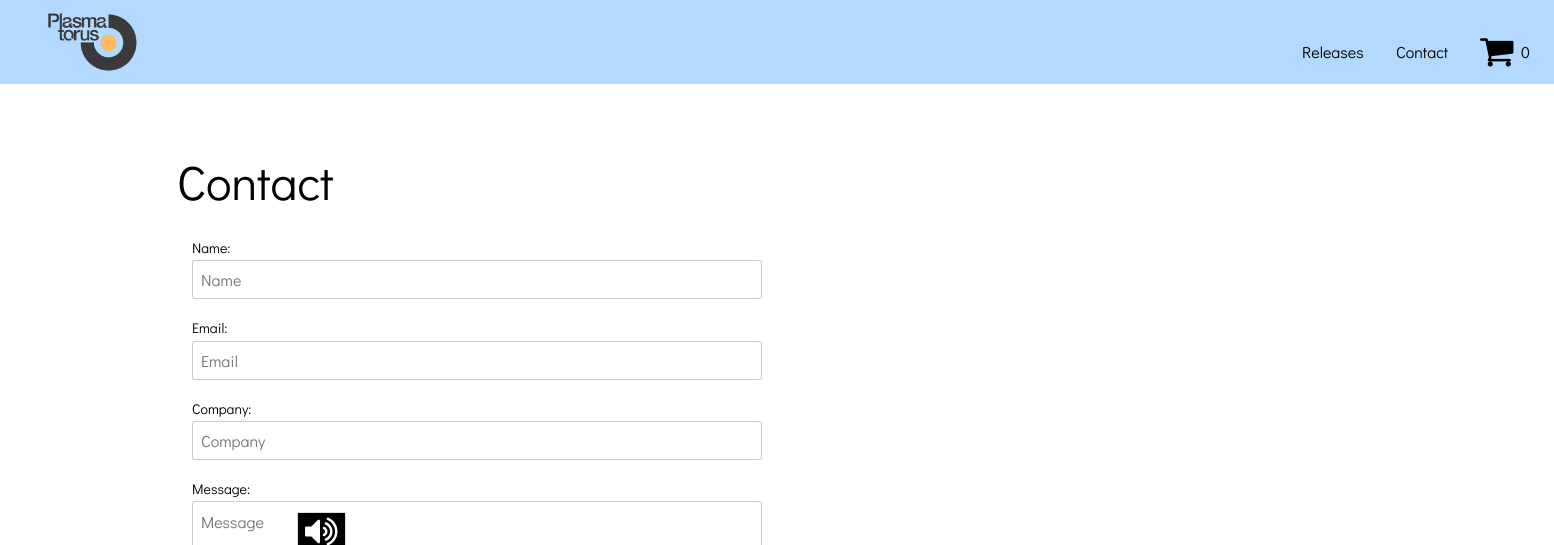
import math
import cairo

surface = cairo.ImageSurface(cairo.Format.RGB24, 1554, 545)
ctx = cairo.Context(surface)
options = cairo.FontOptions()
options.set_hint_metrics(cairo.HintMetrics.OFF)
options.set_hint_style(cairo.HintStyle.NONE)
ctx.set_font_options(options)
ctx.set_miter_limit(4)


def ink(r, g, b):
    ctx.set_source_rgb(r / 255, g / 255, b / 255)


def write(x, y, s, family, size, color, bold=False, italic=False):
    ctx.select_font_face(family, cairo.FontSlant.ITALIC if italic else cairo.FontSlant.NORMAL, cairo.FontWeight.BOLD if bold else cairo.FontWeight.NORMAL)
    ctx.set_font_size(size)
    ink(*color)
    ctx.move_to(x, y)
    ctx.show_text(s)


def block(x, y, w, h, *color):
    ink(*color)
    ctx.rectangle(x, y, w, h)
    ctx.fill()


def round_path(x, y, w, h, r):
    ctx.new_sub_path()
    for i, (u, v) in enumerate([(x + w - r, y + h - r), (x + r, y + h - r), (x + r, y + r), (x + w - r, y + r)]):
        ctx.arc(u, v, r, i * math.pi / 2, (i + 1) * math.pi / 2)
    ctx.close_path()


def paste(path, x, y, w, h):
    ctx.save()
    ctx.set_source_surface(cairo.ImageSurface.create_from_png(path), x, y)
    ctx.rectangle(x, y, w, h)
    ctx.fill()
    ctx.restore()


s1 = dict(family="Didact Gothic", size=16, color=(0, 0, 0))
s2 = dict(family="Didact Gothic", size=48, color=(0, 0, 0))
s3 = dict(family="Didact Gothic", size=14, color=(0, 0, 0))
s4 = dict(family="Didact Gothic", size=16, color=(117, 117, 117))

ink(255, 255, 255)
ctx.paint()
block(0, 0, 1554, 84, 179, 217, 255)
paste("pic1.png", 48, 13, 89, 58)
write(1302, 58, "Releases", **s1)
write(1396, 58, "Contact", **s1)
paste("pic2.png", 1480, 38, 34, 29)
write(1521, 58, "0", **s1)
write(177, 200, "Contact", **s2)
write(192, 253, "Name:", **s3)
round_path(192.5, 260.5, 569, 38, 2.5)
ink(202, 202, 202)
ctx.set_line_width(1)
ctx.stroke()
write(201, 286, "Name", **s4)
write(192, 333, "Email:", **s3)
round_path(192.5, 341.5, 569, 38, 2.5)
ink(202, 202, 202)
ctx.stroke()
write(201, 367, "Email", **s4)
write(192, 414, "Company:", **s3)
round_path(192.5, 421.5, 569, 38, 2.5)
ink(202, 202, 202)
ctx.stroke()
write(201, 447, "Company", **s4)
write(192, 494, "Message:", **s3)
round_path(192.5, 501.5, 569, 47, 2.5)
ink(202, 202, 202)
ctx.stroke()
write(201, 528, "Message", **s4)
block(298, 513, 47, 32, 0, 0, 0)
block(297, 512, 49, 1, 224, 224, 224)
block(345, 512, 1, 33, 224, 224, 224)
block(297, 512, 1, 33, 224, 224, 224)
paste("pic3.png", 305, 517, 33, 28)
surface.write_to_png("screenshot.png")
